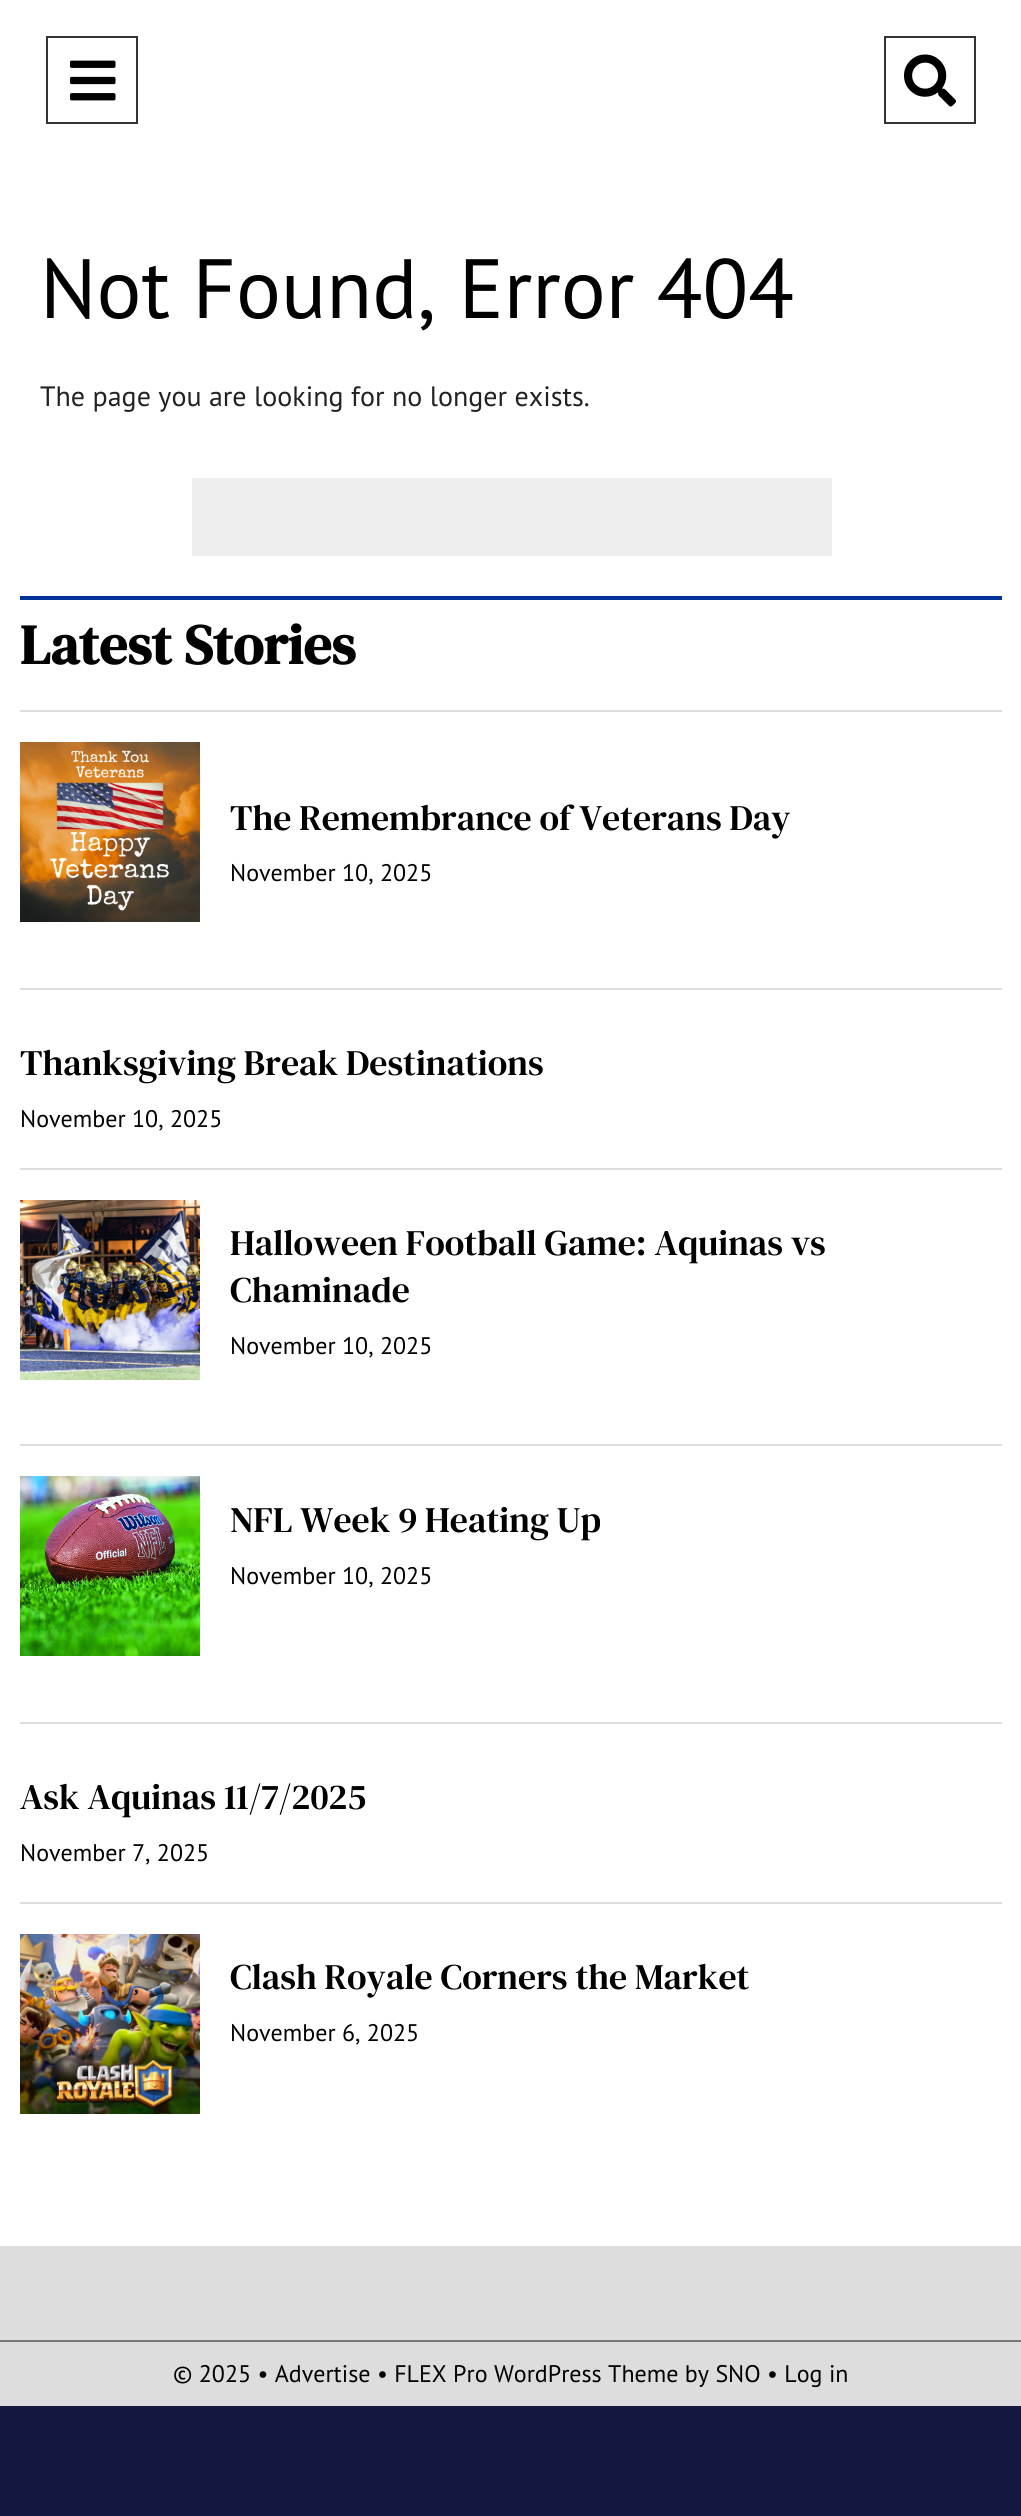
import math
import cairo

surface = cairo.ImageSurface(cairo.Format.RGB24, 1021, 2516)
ctx = cairo.Context(surface)
options = cairo.FontOptions()
options.set_hint_metrics(cairo.HintMetrics.OFF)
options.set_hint_style(cairo.HintStyle.NONE)
ctx.set_font_options(options)
ctx.set_miter_limit(4)


def ink(r, g, b):
    ctx.set_source_rgb(r / 255, g / 255, b / 255)


def write(x, y, s, family, size, color, bold=False, italic=False):
    ctx.select_font_face(family, cairo.FontSlant.ITALIC if italic else cairo.FontSlant.NORMAL, cairo.FontWeight.BOLD if bold else cairo.FontWeight.NORMAL)
    ctx.set_font_size(size)
    ink(*color)
    ctx.move_to(x, y)
    ctx.show_text(s)


def block(x, y, w, h, *color):
    ink(*color)
    ctx.rectangle(x, y, w, h)
    ctx.fill()


def paste(path, x, y, w, h):
    ctx.save()
    ctx.set_source_surface(cairo.ImageSurface.create_from_png(path), x, y)
    ctx.rectangle(x, y, w, h)
    ctx.fill()
    ctx.restore()


s1 = dict(family="PT Sans", size=84, color=(0, 0, 0))
s2 = dict(family="PT Sans", size=28, color=(34, 34, 34))
s3 = dict(family="DM Serif Text", size=56, color=(0, 0, 0), bold=True)
s4 = dict(family="DM Serif Text", size=36, color=(0, 0, 0))
s5 = dict(family="PT Sans", size=24, color=(0, 0, 0))

ink(20, 24, 62)
ctx.paint()
block(0, 0, 1021, 2246, 255, 255, 255)
ctx.rectangle(47, 37, 90, 86)
ink(51, 51, 51)
ctx.stroke()
paste("pic1.png", 70, 60, 46, 41)
ctx.rectangle(885, 37, 90, 86)
ctx.stroke()
paste("pic2.png", 904, 54, 52, 53)
write(40, 318, "Not Found, Error 404", **s1)
write(40, 406, "The page you are looking for no longer exists.", **s2)
block(192, 478, 640, 78, 238, 238, 238)
block(20, 596, 982, 4, 0, 51, 153)
write(20, 664, "Latest Stories", **s3)
block(20, 710, 982, 2, 221, 221, 221)
paste("pic3.png", 20, 742, 180, 180)
write(230, 830, "The Remembrance of Veterans Day", **s4)
write(230, 881, "November 10, 2025", **s5)
block(20, 988, 982, 2, 221, 221, 221)
write(20, 1075, "Thanksgiving Break Destinations", **s4)
write(20, 1127, "November 10, 2025", **s5)
block(20, 1168, 982, 2, 221, 221, 221)
paste("pic4.png", 20, 1200, 180, 180)
write(230, 1255, "Halloween Football Game: Aquinas vs", **s4)
write(230, 1302, "Chaminade", **s4)
write(230, 1354, "November 10, 2025", **s5)
block(20, 1444, 982, 2, 221, 221, 221)
paste("pic5.png", 20, 1476, 180, 180)
write(230, 1532, "NFL Week 9 Heating Up", **s4)
write(230, 1584, "November 10, 2025", **s5)
block(20, 1722, 982, 2, 221, 221, 221)
write(20, 1809, "Ask Aquinas 11/7/2025", **s4)
write(20, 1861, "November 7, 2025", **s5)
block(20, 1902, 982, 2, 221, 221, 221)
paste("pic6.png", 20, 1934, 180, 180)
write(230, 1989, "Clash Royale Corners the Market", **s4)
write(230, 2041, "November 6, 2025", **s5)
block(0, 2246, 1021, 94, 221, 221, 221)
block(0, 2342, 1021, 64, 221, 221, 221)
block(0, 2340, 1021, 2, 119, 119, 119)
write(173, 2382, "© 2025 • Advertise • FLEX Pro WordPress Theme by SNO • Log in", **s5)
surface.write_to_png("screenshot.png")
